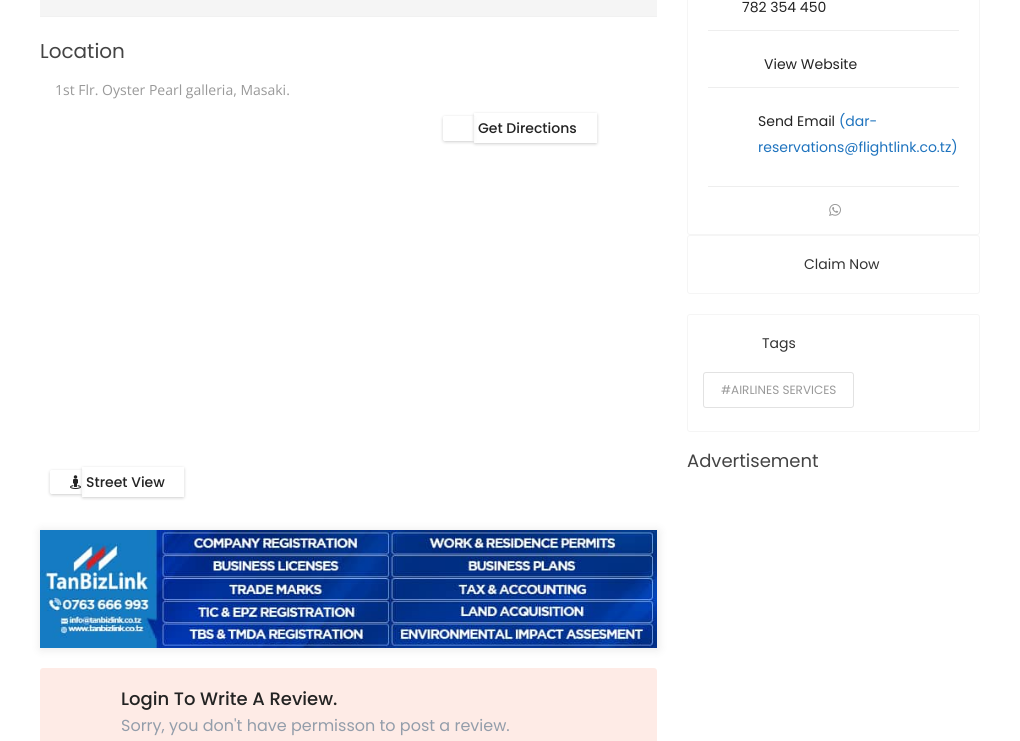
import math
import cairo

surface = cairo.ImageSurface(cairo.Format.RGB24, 1020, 741)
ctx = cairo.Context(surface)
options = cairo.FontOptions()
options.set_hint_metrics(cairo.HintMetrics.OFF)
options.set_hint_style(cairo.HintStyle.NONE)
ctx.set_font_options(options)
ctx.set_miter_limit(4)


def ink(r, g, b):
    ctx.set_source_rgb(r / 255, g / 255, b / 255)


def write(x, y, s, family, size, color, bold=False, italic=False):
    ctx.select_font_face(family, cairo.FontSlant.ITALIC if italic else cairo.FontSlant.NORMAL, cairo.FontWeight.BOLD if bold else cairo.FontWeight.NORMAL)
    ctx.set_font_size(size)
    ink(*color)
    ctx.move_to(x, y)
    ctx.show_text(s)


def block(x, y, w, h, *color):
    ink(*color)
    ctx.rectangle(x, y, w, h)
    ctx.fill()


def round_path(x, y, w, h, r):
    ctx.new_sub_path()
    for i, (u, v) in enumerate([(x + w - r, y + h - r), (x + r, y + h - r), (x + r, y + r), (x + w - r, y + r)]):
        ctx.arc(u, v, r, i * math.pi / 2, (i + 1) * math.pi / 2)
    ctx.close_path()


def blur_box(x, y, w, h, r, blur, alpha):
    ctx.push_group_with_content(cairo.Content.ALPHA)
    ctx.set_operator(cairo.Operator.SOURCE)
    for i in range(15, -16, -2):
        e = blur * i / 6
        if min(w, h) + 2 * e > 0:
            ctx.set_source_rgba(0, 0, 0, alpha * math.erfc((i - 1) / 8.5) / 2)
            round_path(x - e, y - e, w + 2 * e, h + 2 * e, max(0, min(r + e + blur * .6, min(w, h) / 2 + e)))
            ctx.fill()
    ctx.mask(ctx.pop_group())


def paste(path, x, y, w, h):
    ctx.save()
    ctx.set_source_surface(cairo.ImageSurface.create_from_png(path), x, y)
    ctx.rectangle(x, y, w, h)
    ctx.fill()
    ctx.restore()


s1 = dict(family="Poppins", size=20, color=(68, 68, 68))
s2 = dict(family="Open Sans", size=14, color=(153, 153, 153))
s3 = dict(family="Poppins Medium", size=14, color=(35, 35, 35))
s4 = dict(family="Poppins Medium", size=18, color=(35, 35, 35))
s5 = dict(family="Poppins", size=16, color=(147, 157, 170))
s6 = dict(family="Poppins", size=14, color=(35, 35, 35))
s7 = dict(family="Poppins", size=14, color=(30, 115, 190))
s8 = dict(family="Poppins", size=14, color=(51, 51, 51))
s9 = dict(family="Poppins", size=12, color=(153, 153, 153))
s10 = dict(family="Poppins", size=18, color=(68, 68, 68))

ink(255, 255, 255)
ctx.paint()
block(40, 0, 617, 16, 245, 245, 245)
block(40, 16, 617, 1, 241, 241, 241)
write(40, 58, "Location", **s1)
write(55, 95, "1st Flr. Oyster Pearl galleria, Masaki.", **s2)
ctx.save()
ctx.set_fill_rule(cairo.FillRule.EVEN_ODD)
ctx.new_path()
ctx.move_to(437, 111)
ctx.line_to(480, 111)
ctx.line_to(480, 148)
ctx.line_to(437, 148)
ctx.close_path()
ctx.move_to(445, 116)
ctx.line_to(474, 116)
ctx.line_to(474, 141)
ctx.line_to(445, 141)
ctx.curve_to(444, 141, 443, 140, 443, 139)
ctx.line_to(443, 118)
ctx.curve_to(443, 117, 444, 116, 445, 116)
ctx.close_path()
ctx.clip()
ink(0, 0, 0)
blur_box(444, 118, 29, 23, 1, 2, 0.3)
ctx.restore()
ctx.save()
ctx.set_fill_rule(cairo.FillRule.EVEN_ODD)
ctx.new_path()
ctx.move_to(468, 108)
ctx.line_to(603, 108)
ctx.line_to(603, 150)
ctx.line_to(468, 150)
ctx.close_path()
ctx.move_to(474, 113)
ctx.line_to(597, 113)
ctx.line_to(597, 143)
ctx.line_to(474, 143)
ctx.close_path()
ctx.clip()
ink(0, 0, 0)
blur_box(475, 115, 121, 28, 0, 2, 0.3)
ctx.restore()
write(478, 133, "Get Directions", **s3)
ctx.set_source_rgba(1, 1, 1, 0.7)
ctx.rectangle(474, 117, 2, 25)
ctx.fill()
ctx.save()
ctx.set_fill_rule(cairo.FillRule.EVEN_ODD)
ctx.new_path()
ctx.move_to(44, 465)
ctx.line_to(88, 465)
ctx.line_to(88, 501)
ctx.line_to(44, 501)
ctx.close_path()
ctx.move_to(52, 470)
ctx.line_to(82, 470)
ctx.line_to(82, 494)
ctx.line_to(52, 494)
ctx.curve_to(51, 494, 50, 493, 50, 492)
ctx.line_to(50, 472)
ctx.curve_to(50, 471, 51, 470, 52, 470)
ctx.close_path()
ctx.clip()
ink(0, 0, 0)
blur_box(51, 472, 30, 22, 1, 2, 0.3)
ctx.restore()
ctx.save()
ctx.set_fill_rule(cairo.FillRule.EVEN_ODD)
ctx.new_path()
ctx.move_to(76, 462)
ctx.line_to(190, 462)
ctx.line_to(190, 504)
ctx.line_to(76, 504)
ctx.close_path()
ctx.move_to(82, 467)
ctx.line_to(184, 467)
ctx.line_to(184, 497)
ctx.line_to(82, 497)
ctx.close_path()
ctx.clip()
ink(0, 0, 0)
blur_box(83, 469, 100, 28, 0, 2, 0.3)
ctx.restore()
ctx.rectangle(82, 471, 2, 24)
ctx.fill()
paste("pic1.png", 70, 475, 11, 14)
write(86, 487, "Street View", **s3)
ink(0, 0, 0)
blur_box(41, 531, 617, 118, 0, 5, 0.1)
paste("pic2.png", 40, 530, 617, 118)
ink(254, 235, 230)
round_path(40, 668, 617, 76, 3)
ctx.fill()
write(121, 705, "Login To Write A Review.", **s4)
write(121, 731, "Sorry, you don't have permisson to post a review.", **s5)
round_path(687.5, -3.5, 292, 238, 2.5)
ink(245, 245, 245)
ctx.set_line_width(1)
ctx.stroke()
block(708, 30, 251, 1, 238, 238, 238)
write(742, 12, "782 354 450", **s6)
block(708, 87, 251, 1, 238, 238, 238)
write(764, 69, "View Website", **s6)
block(708, 186, 251, 1, 238, 238, 238)
write(758, 126, "Send Email", **s6)
write(839, 126, "(dar-", **s7)
write(758, 152, "reservations@flightlink.co.tz)", **s7)
paste("pic3.png", 829, 204, 12, 12)
round_path(687.5, 235.5, 292, 58, 2.5)
ink(245, 245, 245)
ctx.stroke()
write(804, 269, "Claim Now", **s8)
round_path(687.5, 314.5, 292, 117, 2.5)
ink(245, 245, 245)
ctx.stroke()
write(762, 348, "Tags", **s8)
round_path(703.5, 372.5, 150, 35, 2.5)
ink(226, 226, 226)
ctx.stroke()
write(721, 394, "#AIRLINES SERVICES", **s9)
write(687, 467, "Advertisement", **s10)
surface.write_to_png("screenshot.png")
